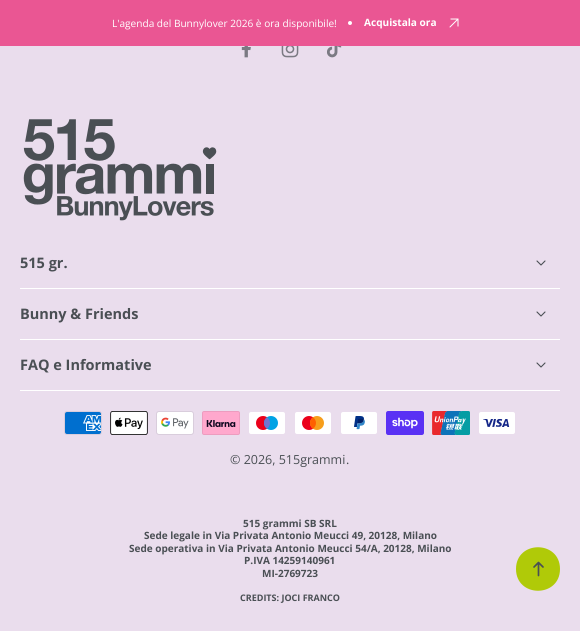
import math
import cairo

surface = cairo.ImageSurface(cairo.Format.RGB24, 580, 631)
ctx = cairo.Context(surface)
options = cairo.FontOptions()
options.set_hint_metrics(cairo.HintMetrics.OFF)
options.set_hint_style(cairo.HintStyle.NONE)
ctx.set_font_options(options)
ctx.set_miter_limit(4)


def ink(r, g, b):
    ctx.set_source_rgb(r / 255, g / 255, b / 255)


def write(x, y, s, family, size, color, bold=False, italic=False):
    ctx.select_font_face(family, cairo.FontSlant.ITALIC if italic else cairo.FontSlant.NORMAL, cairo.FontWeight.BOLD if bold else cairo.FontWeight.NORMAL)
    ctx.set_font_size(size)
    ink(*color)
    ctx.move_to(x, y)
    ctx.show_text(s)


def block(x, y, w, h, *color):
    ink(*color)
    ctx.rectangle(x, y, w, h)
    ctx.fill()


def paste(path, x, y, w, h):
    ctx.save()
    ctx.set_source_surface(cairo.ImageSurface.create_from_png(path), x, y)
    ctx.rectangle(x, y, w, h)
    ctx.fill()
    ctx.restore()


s1 = dict(family="Open Sans", size=10.1, color=(255, 255, 255))
s2 = dict(family="Open Sans", size=10.1, color=(255, 255, 255), bold=True)
s3 = dict(family="Open Sans", size=14.5, color=(74, 79, 84), bold=True)
s4 = dict(family="Open Sans", size=12.5, color=(74, 79, 84))
s5 = dict(family="Open Sans", size=10, color=(74, 79, 84), bold=True)
s6 = dict(family="Open Sans", size=9, color=(74, 79, 84), bold=True)

ink(234, 221, 237)
ctx.paint()
block(0, 0, 580, 46, 234, 86, 147)
write(112, 27, "L'agenda del Bunnylover 2026 è ora disponibile!", **s1)
ctx.new_path()
ctx.arc(350, 23, 2, 0, 2 * math.pi)
ctx.fill()
write(364, 26, "Acquistala ora", **s2)
paste("pic1.png", 449, 18, 10, 10)
paste("pic2.png", 241, 46, 10, 12)
paste("pic3.png", 281, 46, 18, 12)
paste("pic4.png", 327, 46, 15, 12)
paste("pic5.png", 23, 119, 194, 102)
block(20, 288, 540, 1, 255, 255, 255)
write(20, 268, "515 gr.", **s3)
ctx.new_path()
ctx.move_to(537, 261)
ctx.line_to(541, 265)
ctx.line_to(545, 261)
ctx.set_line_width(1.1)
ctx.set_line_cap(cairo.LineCap.ROUND)
ctx.set_line_join(cairo.LineJoin.ROUND)
ctx.stroke()
block(20, 339, 540, 1, 255, 255, 255)
write(20, 319, "Bunny & Friends", **s3)
ctx.new_path()
ctx.move_to(537, 312)
ctx.line_to(541, 316)
ctx.line_to(545, 312)
ctx.stroke()
block(20, 390, 540, 1, 255, 255, 255)
write(20, 370, "FAQ e Informative", **s3)
ctx.new_path()
ctx.move_to(537, 363)
ctx.line_to(541, 367)
ctx.line_to(545, 363)
ctx.stroke()
paste("pic6.png", 64, 411, 38, 24)
paste("pic7.png", 110, 411, 38, 24)
paste("pic8.png", 156, 411, 38, 24)
paste("pic9.png", 202, 411, 38, 24)
paste("pic10.png", 249, 412, 36, 22)
paste("pic11.png", 295, 412, 36, 22)
paste("pic12.png", 341, 412, 36, 22)
paste("pic13.png", 386, 411, 38, 24)
paste("pic14.png", 432, 411, 38, 24)
paste("pic15.png", 479, 412, 36, 22)
write(230, 464, "© 2026, 515grammi", **s4)
write(346, 464, ".", **s4)
write(243, 527, "515 grammi SB SRL", **s5)
write(144, 539, "Sede legale in Via Privata Antonio Meucci 49, 20128, Milano", **s5)
write(129, 552, "Sede operativa in Via Privata Antonio Meucci 54/A, 20128, Milano", **s5)
write(244, 564, "P.IVA 14259140961", **s5)
write(262, 577, "MI-2769723", **s5)
write(240, 601, "CREDITS: JOCI FRANCO", **s6)
ink(176, 202, 8)
ctx.new_path()
ctx.move_to(516, 569)
ctx.curve_to(516, 540, 560, 540, 560, 569)
ctx.curve_to(560, 598, 516, 598, 516, 569)
ctx.close_path()
ctx.fill()
ctx.new_path()
ctx.move_to(543, 567)
ctx.line_to(538.5, 562.5)
ctx.line_to(534, 567)
ctx.move_to(538.5, 575.5)
ctx.line_to(538.5, 563)
ink(74, 79, 84)
ctx.set_line_width(1.7)
ctx.stroke()
surface.write_to_png("screenshot.png")
